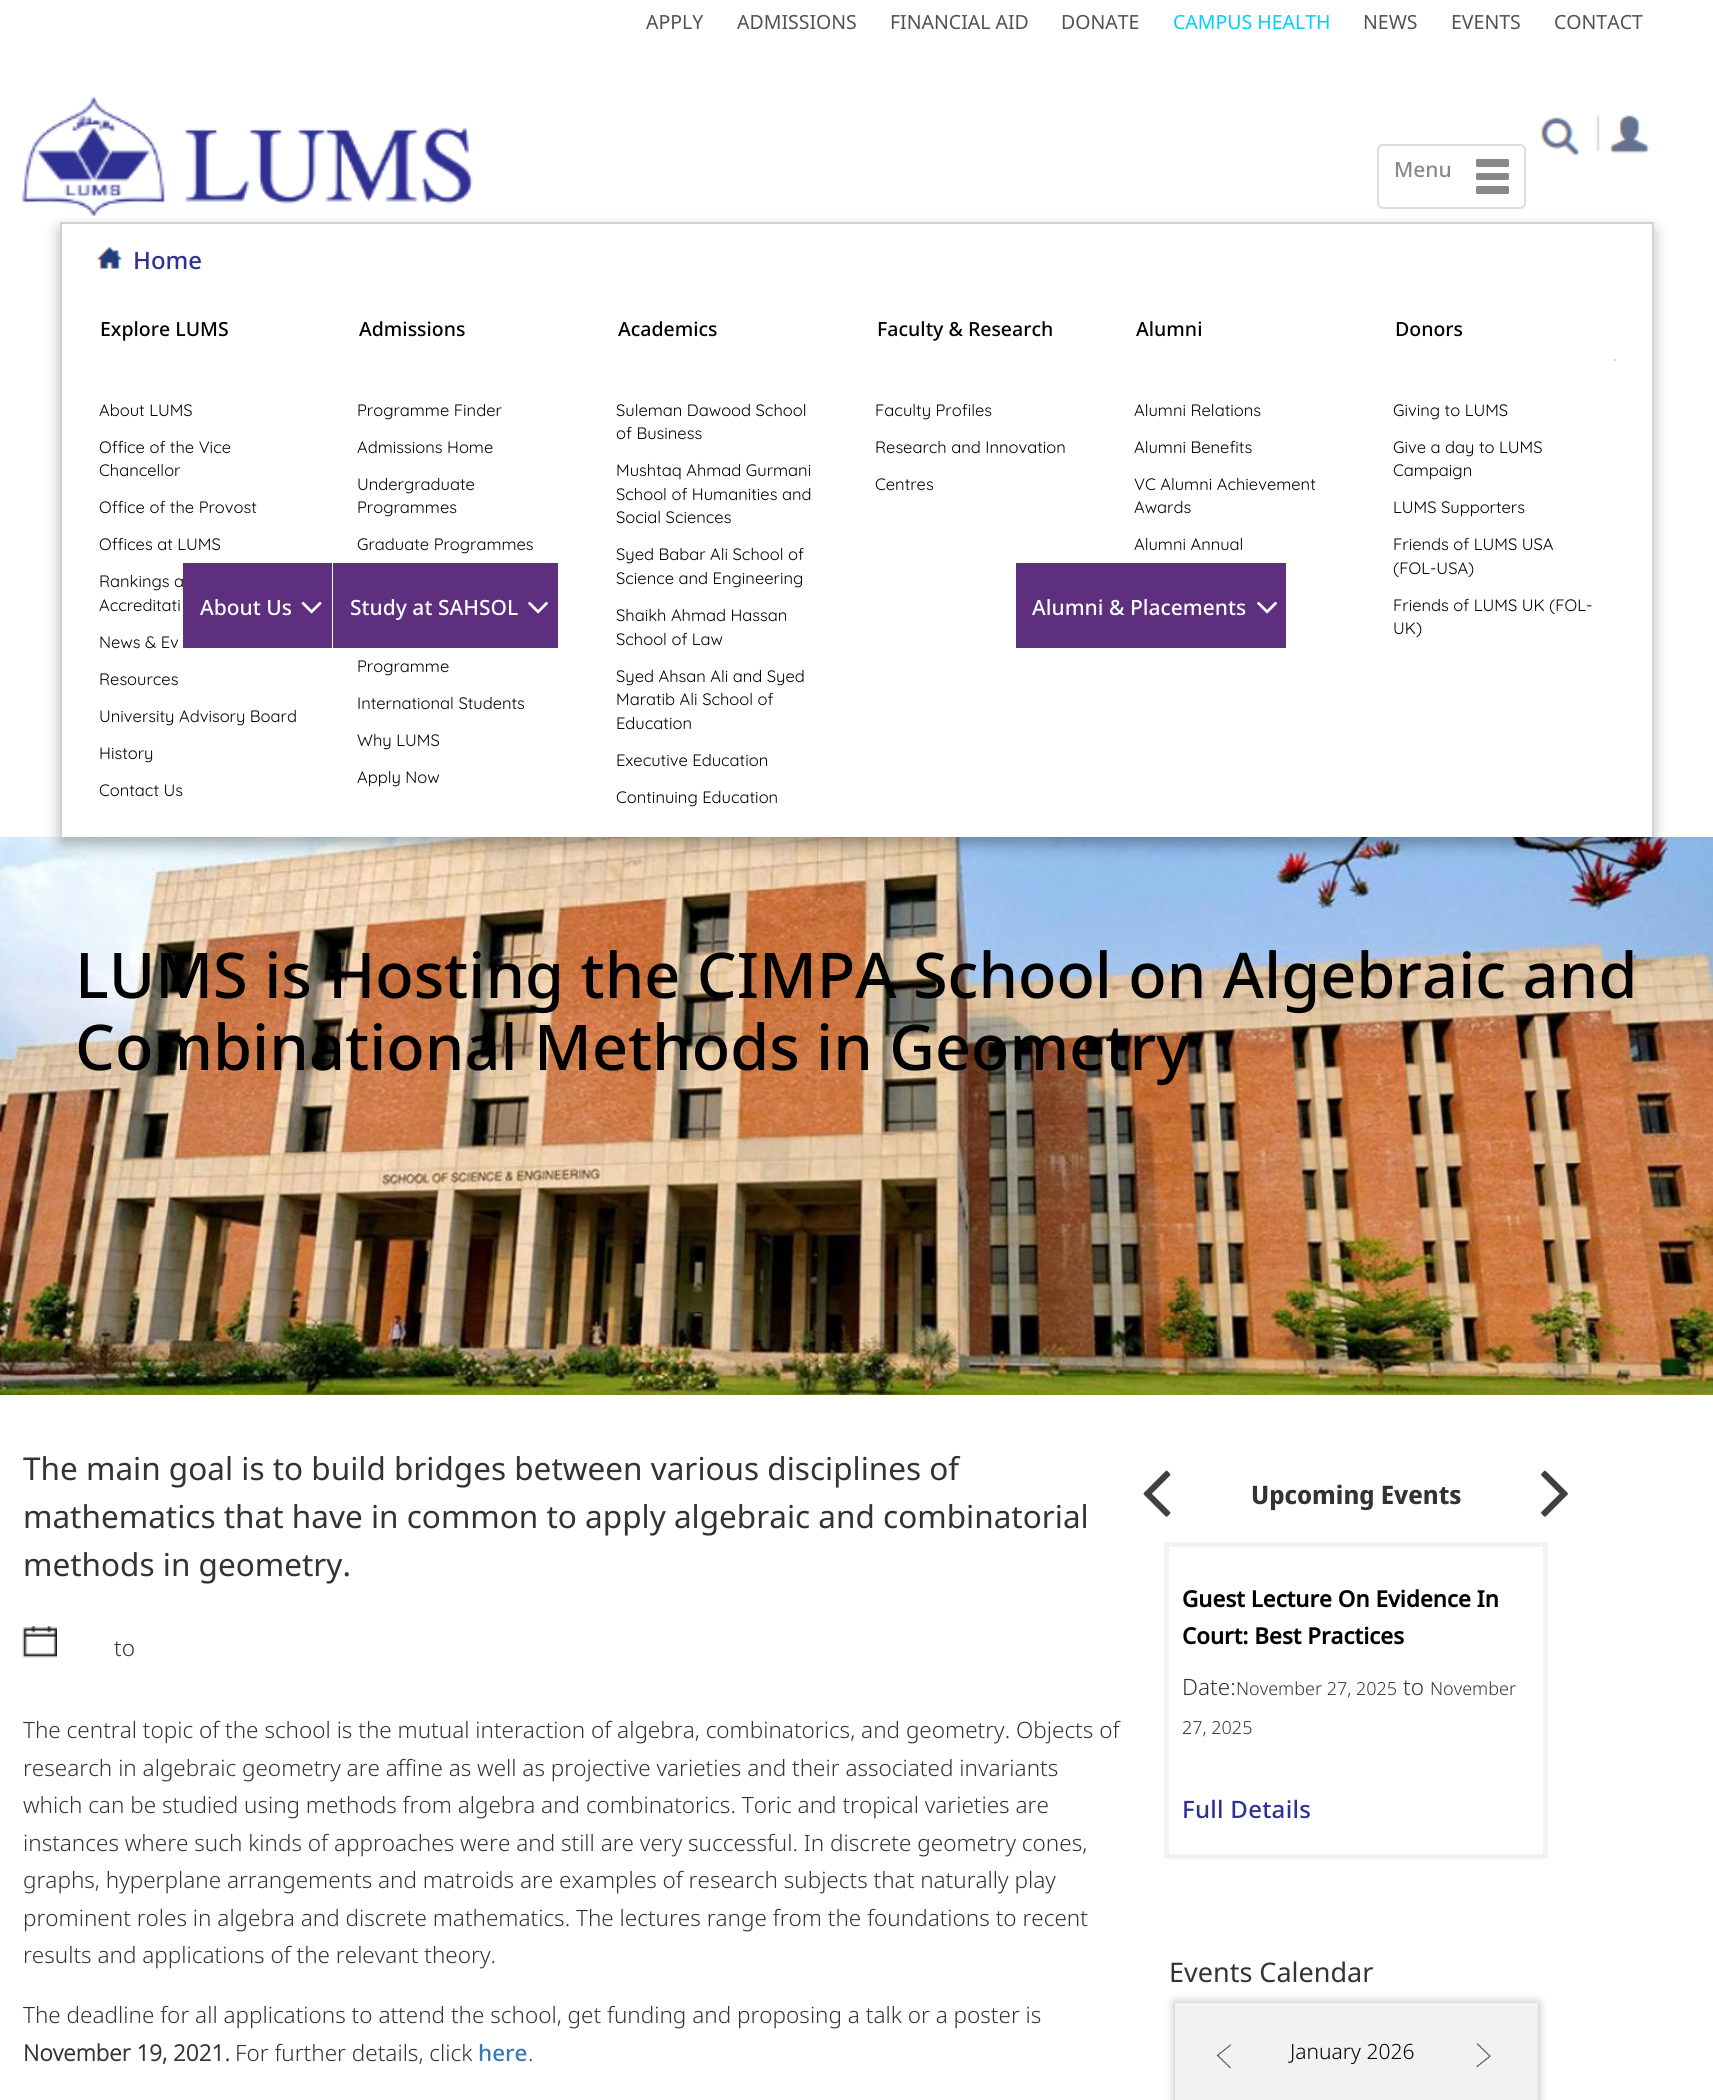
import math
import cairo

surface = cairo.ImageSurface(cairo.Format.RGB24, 1713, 2100)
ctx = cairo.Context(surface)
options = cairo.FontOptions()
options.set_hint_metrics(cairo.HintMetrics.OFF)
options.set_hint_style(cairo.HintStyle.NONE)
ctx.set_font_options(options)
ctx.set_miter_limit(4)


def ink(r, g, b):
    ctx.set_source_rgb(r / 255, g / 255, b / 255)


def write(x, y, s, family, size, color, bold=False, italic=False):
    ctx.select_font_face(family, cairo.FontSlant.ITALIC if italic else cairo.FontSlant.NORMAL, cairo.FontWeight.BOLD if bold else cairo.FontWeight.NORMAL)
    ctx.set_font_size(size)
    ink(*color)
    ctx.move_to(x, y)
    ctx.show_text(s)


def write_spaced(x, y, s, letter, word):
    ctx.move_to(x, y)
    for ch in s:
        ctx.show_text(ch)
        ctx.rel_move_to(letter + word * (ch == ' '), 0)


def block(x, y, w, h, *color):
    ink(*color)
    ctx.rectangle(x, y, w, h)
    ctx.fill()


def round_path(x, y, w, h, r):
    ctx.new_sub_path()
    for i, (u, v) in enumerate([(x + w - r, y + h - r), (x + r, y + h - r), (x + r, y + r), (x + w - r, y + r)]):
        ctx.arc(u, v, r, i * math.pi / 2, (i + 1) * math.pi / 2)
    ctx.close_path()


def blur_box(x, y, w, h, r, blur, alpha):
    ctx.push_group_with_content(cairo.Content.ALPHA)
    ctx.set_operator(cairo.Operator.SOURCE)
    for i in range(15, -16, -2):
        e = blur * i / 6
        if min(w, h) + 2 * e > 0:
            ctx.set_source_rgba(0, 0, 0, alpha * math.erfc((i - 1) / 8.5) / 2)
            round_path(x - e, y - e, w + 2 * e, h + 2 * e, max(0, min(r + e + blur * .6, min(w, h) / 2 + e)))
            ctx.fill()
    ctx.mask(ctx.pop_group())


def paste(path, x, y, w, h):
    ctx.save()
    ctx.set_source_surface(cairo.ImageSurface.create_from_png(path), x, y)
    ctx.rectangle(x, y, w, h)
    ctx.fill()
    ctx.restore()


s1 = dict(family="Noto Sans", size=19.5, color=(82, 82, 82))
s2 = dict(family="Noto Sans", size=19.5, color=(0, 206, 255))
s3 = dict(family="Noto Sans Medium", size=21, color=(136, 136, 136))
s4 = dict(family="Noto Sans Medium", size=24, color=(46, 49, 146))
s5 = dict(family="Noto Sans Medium", size=19.5, color=(0, 0, 0))
s6 = dict(family="Quicksand", size=16.5, color=(0, 0, 0))
s7 = dict(family="Noto Sans Medium", size=21, color=(255, 255, 255))
s8 = dict(family="Noto Sans Medium", size=63, color=(0, 0, 0))
s9 = dict(family="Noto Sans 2", size=31.5, color=(51, 51, 51))
s10 = dict(family="Noto Sans Light", size=22.5, color=(51, 51, 51))
s11 = dict(family="Noto Sans", size=22.5, color=(51, 51, 51), bold=True)
s12 = dict(family="Noto Sans Medium", size=22.5, color=(51, 122, 183))
s13 = dict(family="Noto Sans Display", size=25.5, color=(51, 51, 51), bold=True)
s14 = dict(family="Noto Sans 2", size=22.5, color=(0, 0, 0), bold=True)
s15 = dict(family="Noto Sans Light", size=18, color=(51, 51, 51))
s16 = dict(family="Noto Sans 2", size=27, color=(51, 51, 51))
s17 = dict(family="Noto Sans Light", size=21, color=(0, 0, 0))

ink(255, 255, 255)
ctx.paint()
write(646, 29, "APPLY", **s1)
write(737, 29, "ADMISSIONS", **s1)
write(890, 29, "FINANCIAL AID", **s1)
write(1061, 29, "DONATE", **s1)
write(1173, 29, "CAMPUS HEALTH", **s2)
write(1363, 29, "NEWS", **s1)
write(1451, 29, "EVENTS", **s1)
write(1554, 29, "CONTACT", **s1)
paste("pic1.png", 22, 96, 451, 120)
paste("pic2.png", 1539, 117, 41, 39)
paste("pic3.png", 1596, 115, 54, 39)
round_path(1378, 145, 147, 63, 5)
ink(221, 221, 221)
ctx.stroke()
write(1394, 177, "Menu", **s3)
round_path(1476, 159, 33, 8, 1.5)
ctx.fill()
round_path(1476, 173, 33, 7, 1.5)
ctx.fill()
round_path(1476, 186, 33, 8, 1.5)
ctx.fill()
paste("pic7.png", 0, 837, 1713, 558)
ctx.save()
ctx.set_fill_rule(cairo.FillRule.EVEN_ODD)
ctx.new_path()
ctx.move_to(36, 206)
ctx.line_to(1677, 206)
ctx.line_to(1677, 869)
ctx.line_to(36, 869)
ctx.close_path()
ctx.move_to(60, 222)
ctx.line_to(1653, 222)
ctx.line_to(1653, 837)
ctx.line_to(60, 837)
ctx.close_path()
ctx.clip()
ink(0, 0, 0)
blur_box(60, 230, 1593, 615, 0, 7.5, 0.3)
ctx.restore()
paste("pic4.png", 97, 247, 25, 22)
write(133, 269, "Home", **s4)
block(60, 222, 1593, 2, 210, 210, 210)
block(1652, 222, 2, 615, 210, 210, 210)
block(60, 222, 2, 615, 210, 210, 210)
write(100, 336, "Explore LUMS", **s5)
write(99, 416, "About LUMS", **s6)
write(99, 453, "Office of the Vice", **s6)
write(99, 476, "Chancellor", **s6)
write(99, 513, "Office of the Provost", **s6)
write(99, 550, "Offices at LUMS", **s6)
write(99, 587, "Rankings a", **s6)
write(99, 611, "Accreditati", **s6)
write(99, 648, "News & Ev", **s6)
write(99, 685, "Resources", **s6)
write(99, 722, "University Advisory Board", **s6)
write(99, 759, "History", **s6)
write(99, 796, "Contact Us", **s6)
write(359, 336, "Admissions", **s5)
write(357, 416, "Programme Finder", **s6)
write(357, 453, "Admissions Home", **s6)
write(357, 490, "Undergraduate", **s6)
write(357, 513, "Programmes", **s6)
write(357, 550, "Graduate Programmes", **s6)
write(357, 672, "Programme", **s6)
write(357, 709, "International Students", **s6)
write(357, 746, "Why LUMS", **s6)
write(357, 783, "Apply Now", **s6)
write(618, 336, "Academics", **s5)
write(616, 416, "Suleman Dawood School", **s6)
write(616, 439, "of Business", **s6)
write(616, 476, "Mushtaq Ahmad Gurmani", **s6)
write(616, 500, "School of Humanities and", **s6)
write(616, 523, "Social Sciences", **s6)
write(616, 560, "Syed Babar Ali School of", **s6)
write(616, 584, "Science and Engineering", **s6)
write(616, 621, "Shaikh Ahmad Hassan", **s6)
write(616, 645, "School of Law", **s6)
write(616, 682, "Syed Ahsan Ali and Syed", **s6)
write(616, 705, "Maratib Ali School of", **s6)
write(616, 729, "Education", **s6)
write(616, 766, "Executive Education", **s6)
write(616, 803, "Continuing Education", **s6)
write(877, 336, "Faculty & Research", **s5)
write(875, 416, "Faculty Profiles", **s6)
write(875, 453, "Research and Innovation", **s6)
write(875, 490, "Centres", **s6)
write(1136, 336, "Alumni", **s5)
write(1134, 416, "Alumni Relations", **s6)
write(1134, 453, "Alumni Benefits", **s6)
write(1134, 490, "VC Alumni Achievement", **s6)
write(1134, 513, "Awards", **s6)
write(1134, 550, "Alumni Annual", **s6)
block(1614, 359, 2, 2, 210, 210, 210)
write(1395, 336, "Donors", **s5)
write(1393, 416, "Giving to LUMS", **s6)
write(1393, 453, "Give a day to LUMS", **s6)
write(1393, 476, "Campaign", **s6)
write(1393, 513, "LUMS Supporters", **s6)
write(1393, 550, "Friends of LUMS USA", **s6)
write(1393, 574, "(FOL-USA)", **s6)
write(1393, 611, "Friends of LUMS UK (FOL-", **s6)
write(1393, 634, "UK)", **s6)
block(183, 563, 149, 85, 94, 46, 127)
write(200, 615, "About Us", **s7)
paste("pic5.png", 301, 601, 21, 13)
block(333, 563, 225, 85, 94, 46, 127)
write(350, 615, "Study at SAHSOL", **s7)
paste("pic6.png", 528, 601, 21, 13)
block(1016, 563, 270, 85, 94, 46, 127)
write(1032, 615, "Alumni & Placements", **s7)
paste("pic6.png", 1257, 601, 21, 13)
write(75, 998, "LUMS is Hosting the CIMPA School on Algebraic and", **s8)
write(75, 1070, "Combinational Methods in Geometry", **s8)
write(23, 1480, "The main goal is to build bridges between various disciplines of", **s9)
write(23, 1528, "mathematics that have in common to apply algebraic and combinatorial", **s9)
write(23, 1576, "methods in geometry.", **s9)
paste("pic8.png", 22, 1626, 35, 32)
write(114, 1656, "to", **s10)
write(23, 1738, "The central topic of the school is the mutual interaction of algebra, combinatorics, and geometry. Objects of", **s10)
write(23, 1776, "research in algebraic geometry are affine as well as projective varieties and their associated invariants", **s10)
write(23, 1813, "which can be studied using methods from algebra and combinatorics. Toric and tropical varieties are", **s10)
write(23, 1851, "instances where such kinds of approaches were and still are very successful. In discrete geometry cones,", **s10)
write(23, 1888, "graphs, hyperplane arrangements and matroids are examples of research subjects that naturally play", **s10)
write(23, 1926, "prominent roles in algebra and discrete mathematics. The lectures range from the foundations to recent", **s10)
write(23, 1963, "results and applications of the relevant theory.", **s10)
write(23, 2023, "The deadline for all applications to attend the school, get funding and proposing a talk or a poster is", **s10)
write(23, 2061, "November 19, 2021.", **s11)
write(235, 2061, "For further details, click", **s10)
write(478, 2061, "here", **s12)
write(528, 2061, ".", **s10)
write(1251, 1504, "Upcoming Events", **s13)
paste("pic9.png", 1143, 1470, 28, 47)
paste("pic10.png", 1541, 1470, 27, 47)
ctx.rectangle(1166.5, 1544.5, 379, 312)
ink(242, 242, 242)
ctx.set_line_width(5)
ctx.stroke()
write(1182, 1607, "Guest Lecture On Evidence In", **s14)
write(1182, 1644, "Court: Best Practices", **s14)
write(1182, 1695, "Date:", **s10)
write(1236, 1695, "November 27, 2025", **s15)
write(1403, 1695, "to", **s10)
write(1430, 1695, "November", **s15)
write(1182, 1734, "27, 2025", **s15)
ctx.select_font_face("Noto Sans Medium")
ctx.set_font_size(24)
ink(46, 49, 146)
write_spaced(1182, 1818, "Full Details", 0.25, 0)
write(1169, 1982, "Events Calendar", **s16)
ink(0, 0, 0)
blur_box(1175, 2003, 363, 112, 0, 5, 0.3)
block(1175, 2003, 363, 97, 242, 242, 242)
paste("pic11.png", 1216, 2044, 16, 25)
paste("pic12.png", 1476, 2043, 15, 25)
write(1290, 2059, "January 2026", **s17)
surface.write_to_png("screenshot.png")
